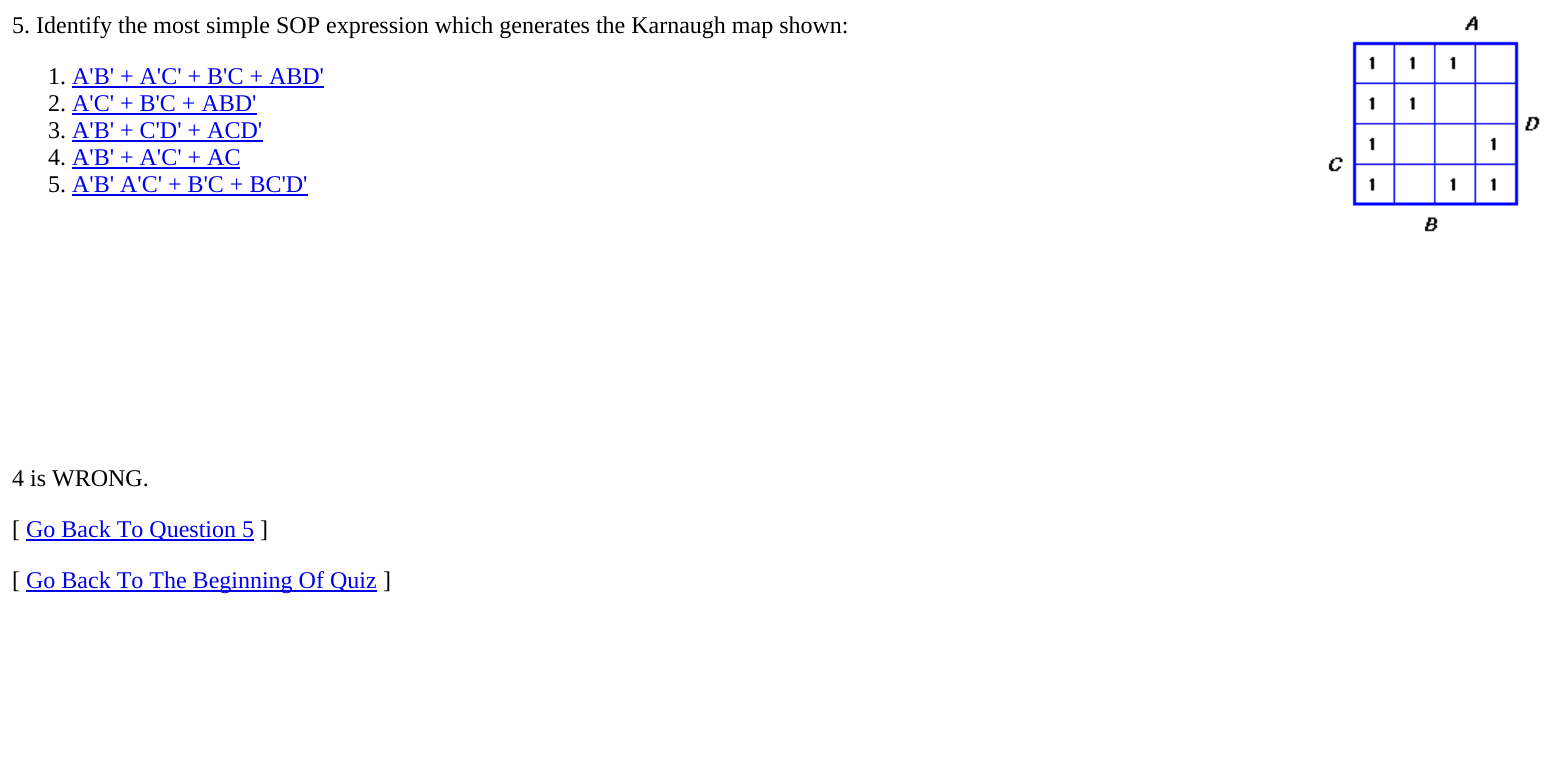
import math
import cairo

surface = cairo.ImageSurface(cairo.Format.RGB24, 1554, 783)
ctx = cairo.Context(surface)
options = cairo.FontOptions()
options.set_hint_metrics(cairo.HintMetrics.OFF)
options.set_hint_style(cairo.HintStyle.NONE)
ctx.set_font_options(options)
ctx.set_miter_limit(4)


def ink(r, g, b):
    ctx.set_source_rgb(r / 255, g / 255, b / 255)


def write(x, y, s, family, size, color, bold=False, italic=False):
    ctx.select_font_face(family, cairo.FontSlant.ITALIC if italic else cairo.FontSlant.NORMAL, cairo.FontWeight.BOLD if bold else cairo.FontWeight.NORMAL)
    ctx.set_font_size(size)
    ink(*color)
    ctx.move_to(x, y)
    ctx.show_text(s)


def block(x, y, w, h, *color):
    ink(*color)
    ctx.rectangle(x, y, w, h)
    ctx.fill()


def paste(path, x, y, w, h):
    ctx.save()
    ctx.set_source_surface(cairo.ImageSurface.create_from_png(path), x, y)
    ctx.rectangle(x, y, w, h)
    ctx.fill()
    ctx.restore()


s1 = dict(family="Liberation Serif", size=24, color=(0, 0, 0))
s2 = dict(family="Liberation Serif", size=24, color=(0, 0, 238))

ink(255, 255, 255)
ctx.paint()
write(12, 33, "5. Identify the most simple SOP expression which generates the Karnaugh map shown:", **s1)
paste("pic1.png", 1328, 16, 212, 216)
write(48, 84, "1.", **s1)
write(72, 84, "A'B' + A'C' + B'C + ABD'", **s2)
block(72, 86, 252, 2, 0, 0, 238)
write(48, 111, "2.", **s1)
write(72, 111, "A'C' + B'C + ABD'", **s2)
block(72, 113, 185, 2, 0, 0, 238)
write(48, 138, "3.", **s1)
write(72, 138, "A'B' + C'D' + ACD'", **s2)
block(72, 140, 191, 2, 0, 0, 238)
write(48, 165, "4.", **s1)
write(72, 165, "A'B' + A'C' + AC", **s2)
block(72, 167, 168, 2, 0, 0, 238)
write(48, 192, "5.", **s1)
write(72, 192, "A'B' A'C' + B'C + BC'D'", **s2)
block(72, 194, 236, 2, 0, 0, 238)
write(12, 486, "4 is WRONG.", **s1)
write(12, 537, "[", **s1)
block(26, 539, 228, 2, 0, 0, 238)
write(26, 537, "Go Back To Question 5", **s2)
write(260, 537, "]", **s1)
write(12, 588, "[", **s1)
block(26, 590, 351, 2, 0, 0, 238)
write(26, 588, "Go Back To The Beginning Of Quiz", **s2)
write(383, 588, "]", **s1)
surface.write_to_png("screenshot.png")
